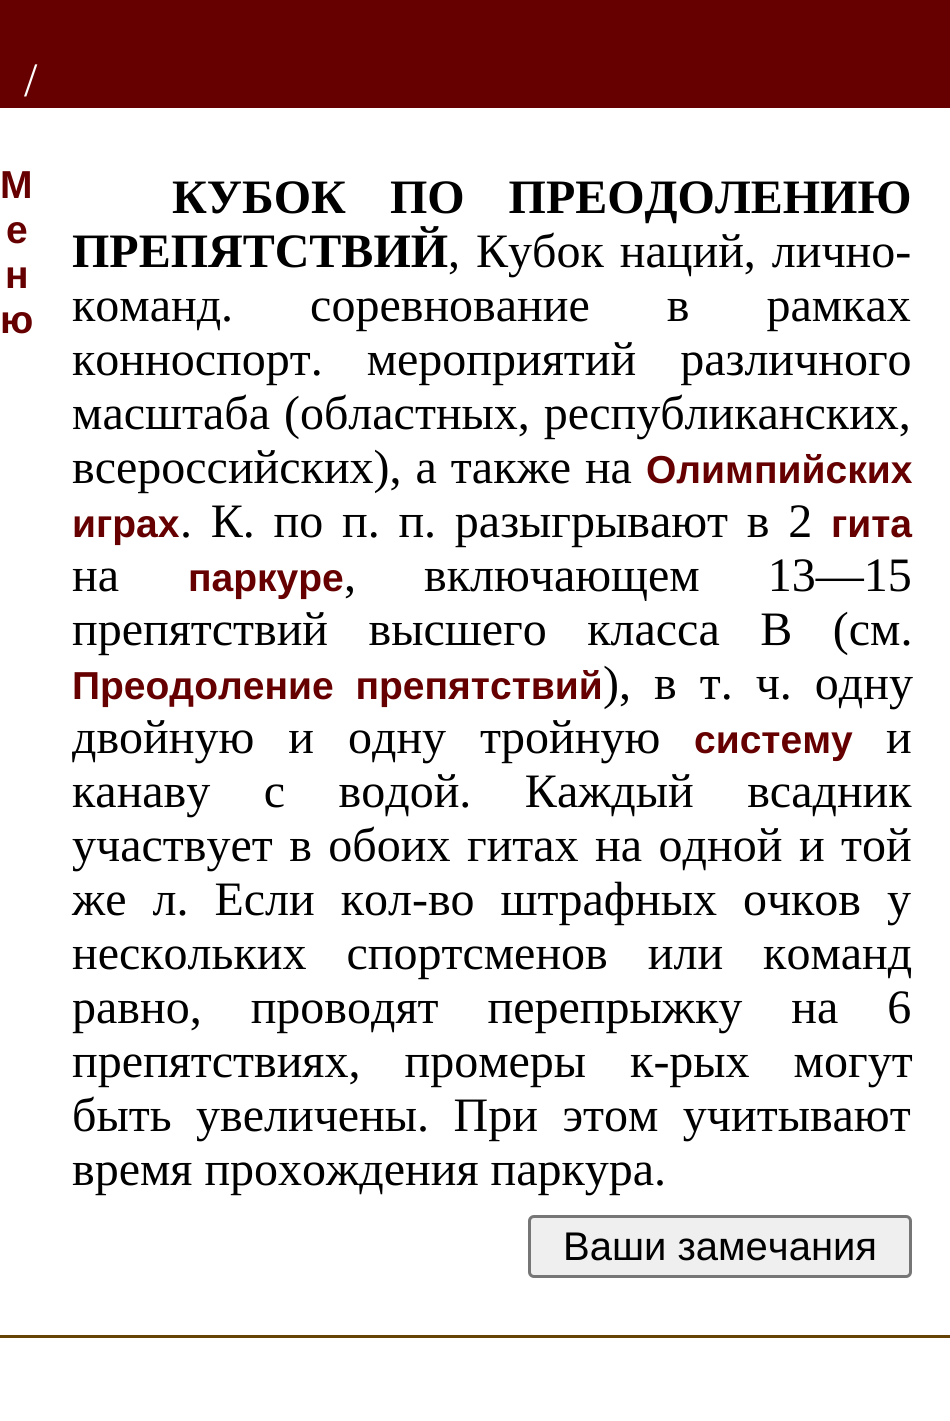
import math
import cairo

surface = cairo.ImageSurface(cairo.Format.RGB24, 950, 1421)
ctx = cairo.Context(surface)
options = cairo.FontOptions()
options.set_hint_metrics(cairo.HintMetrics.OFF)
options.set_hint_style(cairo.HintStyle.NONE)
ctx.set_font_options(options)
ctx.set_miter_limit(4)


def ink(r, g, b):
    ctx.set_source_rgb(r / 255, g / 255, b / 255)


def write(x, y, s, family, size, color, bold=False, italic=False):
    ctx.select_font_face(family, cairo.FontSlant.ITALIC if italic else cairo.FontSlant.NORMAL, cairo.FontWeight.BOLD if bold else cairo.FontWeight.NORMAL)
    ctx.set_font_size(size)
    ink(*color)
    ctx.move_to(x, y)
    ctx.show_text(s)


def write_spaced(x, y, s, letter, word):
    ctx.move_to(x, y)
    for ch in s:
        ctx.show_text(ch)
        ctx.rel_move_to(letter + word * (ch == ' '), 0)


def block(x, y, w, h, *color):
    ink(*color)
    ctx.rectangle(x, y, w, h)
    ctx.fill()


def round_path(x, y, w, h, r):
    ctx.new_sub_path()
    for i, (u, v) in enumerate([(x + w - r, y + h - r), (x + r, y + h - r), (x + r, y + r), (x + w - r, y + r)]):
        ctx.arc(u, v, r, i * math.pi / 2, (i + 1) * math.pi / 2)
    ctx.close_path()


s1 = dict(family="Liberation Serif", size=48, color=(255, 255, 255))
s2 = dict(family="Liberation Sans", size=39, color=(102, 0, 0), bold=True)
s3 = dict(family="Liberation Serif", size=48, color=(0, 0, 0), bold=True)
s4 = dict(family="Liberation Serif", size=48, color=(0, 0, 0))
s5 = dict(family="Liberation Sans", size=40, color=(0, 0, 0))

ink(255, 255, 255)
ctx.paint()
block(0, 0, 950, 108, 102, 0, 0)
write(24, 96, "/", **s1)
write(0, 198, "М", **s2)
write(6, 243, "е", **s2)
write(5, 288, "н", **s2)
write(0, 333, "ю", **s2)
ctx.select_font_face("Liberation Serif", cairo.FontSlant.NORMAL, cairo.FontWeight.BOLD)
ctx.set_font_size(48)
ink(0, 0, 0)
write_spaced(172, 213, "КУБОК ПО ПРЕОДОЛЕНИЮ", 0, 32)
write(72, 267, "ПРЕПЯТСТВИЙ", **s3)
ctx.select_font_face("Liberation Serif")
write_spaced(448, 267, ", Кубок наций, лично-", 0, 4)
write_spaced(72, 321, "команд. соревнование в рамках", 0, 65)
write_spaced(72, 375, "конноспорт. мероприятий различного", 0, 32)
write_spaced(72, 429, "масштаба (областных, республиканских,", 0, 2)
write_spaced(72, 483, "всероссийских), а также на", 0, 2)
write(646, 483, "Олимпийских", **s2)
write(72, 537, "играх", **s2)
ctx.select_font_face("Liberation Serif")
ctx.set_font_size(48)
ink(0, 0, 0)
write_spaced(180, 537, ". К. по п. п. разыгрывают в 2", 0, 6.75)
write(831, 537, "гита", **s2)
write(72, 591, "на", **s4)
write(188, 591, "паркуре", **s2)
ctx.select_font_face("Liberation Serif")
ctx.set_font_size(48)
ink(0, 0, 0)
write_spaced(344, 591, ", включающем 13—15", 0, 56)
write_spaced(72, 645, "препятствий высшего класса В (см.", 0, 28.5)
ctx.select_font_face("Liberation Sans", cairo.FontSlant.NORMAL, cairo.FontWeight.BOLD)
ctx.set_font_size(39)
ink(102, 0, 0)
write_spaced(72, 699, "Преодоление препятствий", 0, 11)
ctx.select_font_face("Liberation Serif")
ctx.set_font_size(48)
ink(0, 0, 0)
write_spaced(603, 699, "), в т. ч. одну", 0, 11)
write_spaced(72, 753, "двойную и одну тройную", 0, 22)
write(694, 753, "систему", **s2)
write(886, 753, "и", **s4)
write_spaced(72, 807, "канаву с водой. Каждый всадник", 0, 41.5)
write_spaced(72, 861, "участвует в обоих гитах на одной и той", 0, 4.5)
write_spaced(72, 915, "же л. Если кол-во штрафных очков у", 0, 14)
write_spaced(72, 969, "нескольких спортсменов или команд", 0, 28)
write_spaced(72, 1023, "равно, проводят перепрыжку на 6", 0, 37)
write_spaced(72, 1077, "препятствиях, промеры к-рых могут", 0, 32)
write_spaced(72, 1131, "быть увеличены. При этом учитывают", 0, 12.5)
write(72, 1185, "время прохождения паркура.", **s4)
ink(239, 239, 239)
round_path(529.5, 1216.5, 381, 60, 4.5)
ctx.fill_preserve()
ink(118, 118, 118)
ctx.set_line_width(3)
ctx.stroke()
write(563, 1260, "Ваши замечания", **s5)
block(0, 1335, 950, 3, 101, 66, 5)
surface.write_to_png("screenshot.png")
